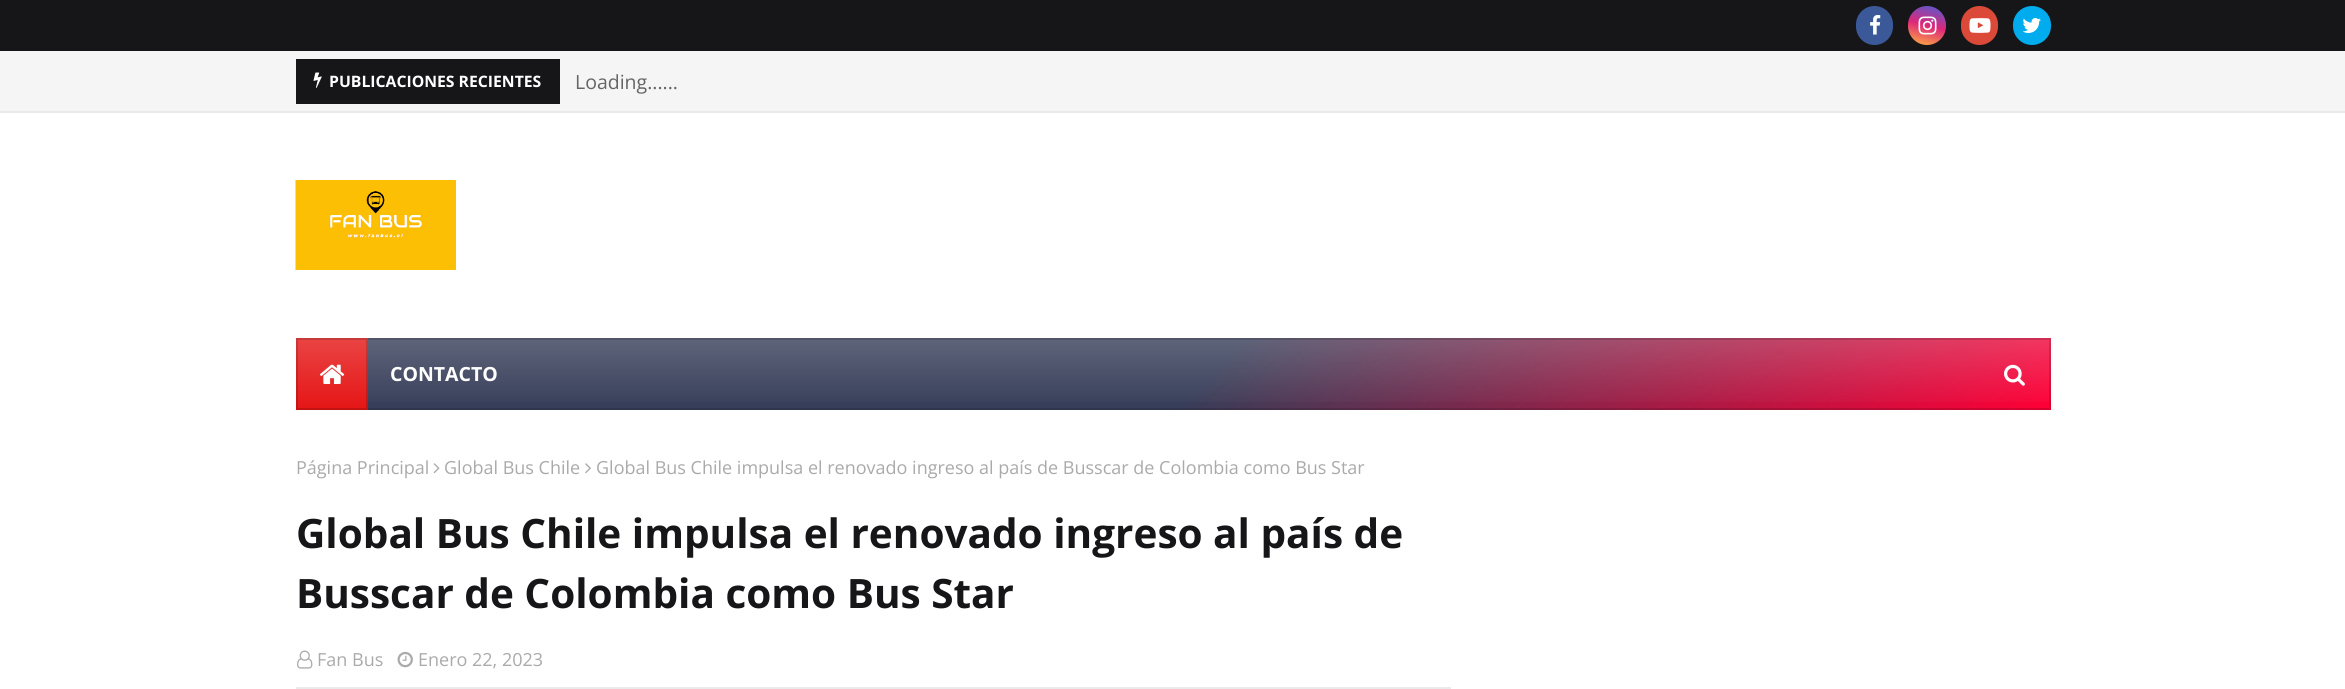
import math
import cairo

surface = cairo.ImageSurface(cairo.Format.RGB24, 2345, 689)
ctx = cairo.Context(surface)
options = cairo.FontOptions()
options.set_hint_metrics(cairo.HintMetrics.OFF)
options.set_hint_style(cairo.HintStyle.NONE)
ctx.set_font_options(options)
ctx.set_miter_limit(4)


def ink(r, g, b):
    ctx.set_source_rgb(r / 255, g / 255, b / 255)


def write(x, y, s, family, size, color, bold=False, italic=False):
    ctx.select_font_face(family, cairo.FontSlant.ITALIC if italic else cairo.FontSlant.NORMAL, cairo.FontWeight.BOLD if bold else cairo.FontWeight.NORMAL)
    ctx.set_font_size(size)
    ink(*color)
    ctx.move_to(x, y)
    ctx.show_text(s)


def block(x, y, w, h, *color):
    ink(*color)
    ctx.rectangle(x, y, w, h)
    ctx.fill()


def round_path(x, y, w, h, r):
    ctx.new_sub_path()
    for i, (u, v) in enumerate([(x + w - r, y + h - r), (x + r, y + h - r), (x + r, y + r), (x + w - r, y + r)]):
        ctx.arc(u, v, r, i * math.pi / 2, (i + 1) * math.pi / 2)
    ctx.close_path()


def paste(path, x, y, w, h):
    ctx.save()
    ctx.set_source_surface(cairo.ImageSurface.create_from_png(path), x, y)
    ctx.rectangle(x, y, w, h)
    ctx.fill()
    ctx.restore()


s1 = dict(family="Open Sans", size=15.75, color=(255, 255, 255), bold=True)
s2 = dict(family="Open Sans", size=19.5, color=(101, 101, 101))
s3 = dict(family="Open Sans", size=19.5, color=(255, 255, 255), bold=True)
s4 = dict(family="Open Sans", size=18, color=(170, 170, 170))
s5 = dict(family="Open Sans", size=40.5, color=(22, 22, 25), bold=True)

ink(255, 255, 255)
ctx.paint()
block(0, 0, 2345, 51, 22, 22, 25)
ink(59, 89, 153)
round_path(1856, 6, 37, 39, 18.5)
ctx.fill()
paste("pic1.png", 1870, 15, 11, 20)
gradient = cairo.LinearGradient(1921, 48, 1933, 2.6)
gradient.add_color_stop_rgba(0, 1, 0.694, 0.239, 1)
gradient.add_color_stop_rgba(0.5, 0.867, 0.153, 0.482, 1)
gradient.add_color_stop_rgba(1, 0.302, 0.369, 0.831, 1)
ctx.set_source(gradient)
round_path(1908, 6, 38, 39, 19)
ctx.fill()
paste("pic2.png", 1918, 16, 19, 19)
ink(219, 74, 57)
round_path(1961, 6, 37, 39, 18.5)
ctx.fill()
paste("pic3.png", 1969, 18, 22, 15)
ink(0, 172, 238)
round_path(2013, 6, 38, 39, 19)
ctx.fill()
paste("pic4.png", 2022, 18, 19, 15)
block(0, 51, 2345, 60, 245, 245, 245)
block(0, 111, 2345, 2, 233, 233, 233)
block(296, 59, 264, 45, 22, 22, 25)
paste("pic5.png", 313, 72, 9, 16)
write(329, 87, "PUBLICACIONES RECIENTES", **s1)
write(575, 89, "Loading......", **s2)
paste("pic6.png", 295, 180, 161, 90)
gradient = cairo.LinearGradient(716, -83, 1630, 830)
gradient.add_color_stop_rgba(0.52, 0.216, 0.243, 0.349, 1)
gradient.add_color_stop_rgba(1, 1, 0, 0.212, 1)
ctx.set_source(gradient)
ctx.rectangle(368, 338, 1683, 72)
ctx.fill()
gradient = cairo.LinearGradient(1173, 337, 1173, 410)
gradient.add_color_stop_rgba(0, 1, 1, 1, 0.2)
gradient.add_color_stop_rgba(1, 1, 1, 1, 0)
ctx.set_source(gradient)
ctx.rectangle(368, 338, 1683, 64)
ctx.fill()
ctx.rectangle(297, 339, 1753, 70)
ctx.set_source_rgba(0, 0, 0, 0.15)
ctx.stroke()
gradient = cairo.LinearGradient(332, 338, 332, 410)
gradient.add_color_stop_rgba(0, 0.918, 0.267, 0.267, 1)
gradient.add_color_stop_rgba(1, 0.898, 0.082, 0.082, 1)
ctx.set_source(gradient)
ctx.rectangle(296, 338, 72, 72)
ctx.fill()
ctx.rectangle(297, 339, 70, 70)
ctx.set_source_rgba(0, 0, 0, 0.15)
ctx.stroke()
paste("pic7.png", 319, 364, 26, 20)
write(390, 381, "CONTACTO", **s3)
paste("pic8.png", 2004, 364, 21, 22)
write(296, 474, "Página Principal", **s4)
paste("pic9.png", 433, 463, 7, 11)
write(444, 474, "Global Bus Chile", **s4)
paste("pic10.png", 585, 463, 6, 11)
write(596, 474, "Global Bus Chile impulsa el renovado ingreso al país de Busscar de Colombia como Bus Star", **s4)
write(296, 548, "Global Bus Chile impulsa el renovado ingreso al país de", **s5)
write(296, 608, "Busscar de Colombia como Bus Star", **s5)
block(296, 687, 1155, 2, 234, 234, 234)
paste("pic11.png", 297, 650, 16, 19)
write(317, 666, "Fan Bus", **s4)
paste("pic12.png", 397, 651, 16, 17)
write(418, 666, "Enero 22, 2023", **s4)
surface.write_to_png("screenshot.png")
